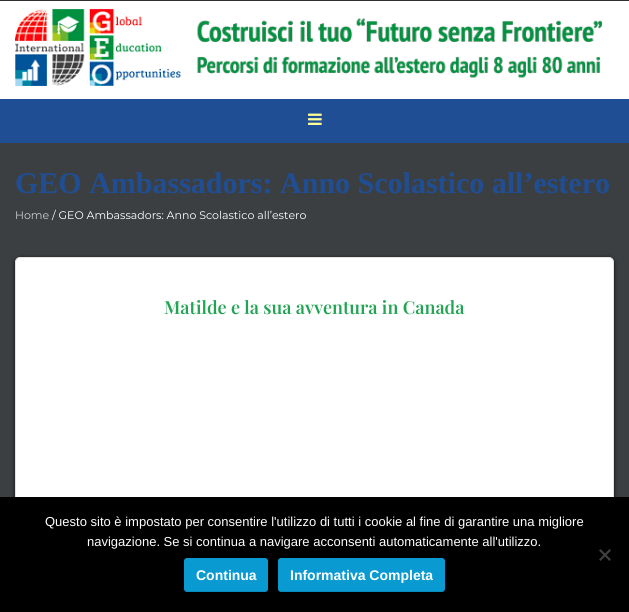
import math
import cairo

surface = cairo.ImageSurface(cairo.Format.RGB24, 629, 612)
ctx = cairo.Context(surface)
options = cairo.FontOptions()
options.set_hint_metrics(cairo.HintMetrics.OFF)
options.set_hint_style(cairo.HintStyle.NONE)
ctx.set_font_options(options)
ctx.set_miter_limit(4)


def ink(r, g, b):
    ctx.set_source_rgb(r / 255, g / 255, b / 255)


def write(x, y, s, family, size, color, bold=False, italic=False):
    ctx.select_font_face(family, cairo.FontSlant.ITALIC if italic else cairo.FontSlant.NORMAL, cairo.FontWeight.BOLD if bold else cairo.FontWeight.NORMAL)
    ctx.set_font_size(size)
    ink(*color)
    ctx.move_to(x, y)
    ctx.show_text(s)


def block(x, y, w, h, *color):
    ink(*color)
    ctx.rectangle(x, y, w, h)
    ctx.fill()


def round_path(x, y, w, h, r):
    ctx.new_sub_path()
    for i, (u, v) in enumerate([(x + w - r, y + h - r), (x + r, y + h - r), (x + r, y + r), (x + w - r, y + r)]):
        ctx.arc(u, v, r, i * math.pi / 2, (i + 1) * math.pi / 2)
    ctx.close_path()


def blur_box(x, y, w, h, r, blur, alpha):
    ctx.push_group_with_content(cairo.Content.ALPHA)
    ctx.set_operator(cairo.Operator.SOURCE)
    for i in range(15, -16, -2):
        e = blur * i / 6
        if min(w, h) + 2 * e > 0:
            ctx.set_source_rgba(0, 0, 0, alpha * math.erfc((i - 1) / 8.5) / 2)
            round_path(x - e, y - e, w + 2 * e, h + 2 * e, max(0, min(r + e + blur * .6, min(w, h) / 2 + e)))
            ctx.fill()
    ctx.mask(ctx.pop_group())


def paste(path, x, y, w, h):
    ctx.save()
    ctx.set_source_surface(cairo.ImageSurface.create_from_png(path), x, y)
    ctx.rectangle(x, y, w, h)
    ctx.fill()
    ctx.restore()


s1 = dict(family="Liberation Serif", size=30, color=(32, 78, 148), bold=True)
s2 = dict(family="Montserrat", size=11, color=(204, 204, 204))
s3 = dict(family="Montserrat", size=11, color=(255, 255, 255))
s4 = dict(family="Playfair Display SemiBold", size=18, color=(35, 164, 85))
s5 = dict(family="Liberation Sans", size=13, color=(255, 255, 255))
s6 = dict(family="Liberation Sans", size=14, color=(255, 255, 255), bold=True)

ink(59, 63, 66)
ctx.paint()
block(0, 0, 629, 1, 48, 48, 48)
block(0, 1, 629, 98, 255, 255, 255)
paste("pic1.png", 15, 9, 588, 77)
block(0, 99, 629, 44, 32, 78, 148)
paste("pic2.png", 308, 113, 14, 12)
write(15, 193, "GEO Ambassadors: Anno Scolastico all’estero", **s1)
write(15, 219, "Home", **s2)
write(52, 219, "/ GEO Ambassadors: Anno Scolastico all’estero", **s3)
ink(0, 0, 0)
blur_box(15, 258, 599, 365, 5, 2, 0.8)
ink(255, 255, 255)
round_path(15.5, 257.5, 598, 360, 4.5)
ctx.fill_preserve()
ink(226, 226, 226)
ctx.set_line_width(1)
ctx.stroke()
write(164, 314, "Matilde e la sua avventura in Canada", **s4)
block(0, 497, 629, 115, 0, 0, 0)
write(45, 526, "Questo sito è impostato per consentire l'utilizzo di tutti i cookie al fine di garantire una migliore", **s5)
write(87, 546, "navigazione. Se si continua a navigare acconsenti automaticamente all'utilizzo.", **s5)
ink(64, 64, 64)
ctx.new_path()
ctx.move_to(609.5, 549)
ctx.line_to(611, 550.5)
ctx.line_to(600.5, 561)
ctx.line_to(599, 559.5)
ctx.close_path()
ctx.fill()
ctx.new_path()
ctx.move_to(599, 550.5)
ctx.line_to(600.5, 549)
ctx.line_to(611, 559.5)
ctx.line_to(609.5, 561)
ctx.close_path()
ctx.fill()
ink(9, 154, 209)
round_path(184, 558, 84, 34, 3)
ctx.fill()
ctx.set_source_rgba(0, 0, 0, 0.1)
ctx.new_path()
ctx.move_to(184, 588)
ctx.curve_to(184, 595, 196, 592, 200, 592)
ctx.line_to(252, 592)
ctx.curve_to(256, 592, 268, 595, 268, 588)
ctx.curve_to(268, 589, 267, 591, 265, 591)
ctx.line_to(187, 591)
ctx.curve_to(185, 591, 184, 589, 184, 588)
ctx.close_path()
ctx.fill()
write(196, 580, "Continua", **s6)
ink(9, 154, 209)
round_path(278, 558, 167, 34, 3)
ctx.fill()
ctx.set_source_rgba(0, 0, 0, 0.1)
ctx.new_path()
ctx.move_to(278, 588)
ctx.line_to(278, 589)
ctx.curve_to(278, 591, 279, 592, 281, 592)
ctx.line_to(442, 592)
ctx.curve_to(444, 592, 445, 591, 445, 589)
ctx.line_to(445, 588)
ctx.curve_to(445, 589, 444, 591, 442, 591)
ctx.line_to(281, 591)
ctx.curve_to(279, 591, 278, 589, 278, 588)
ctx.close_path()
ctx.fill()
write(290, 580, "Informativa Completa", **s6)
surface.write_to_png("screenshot.png")
